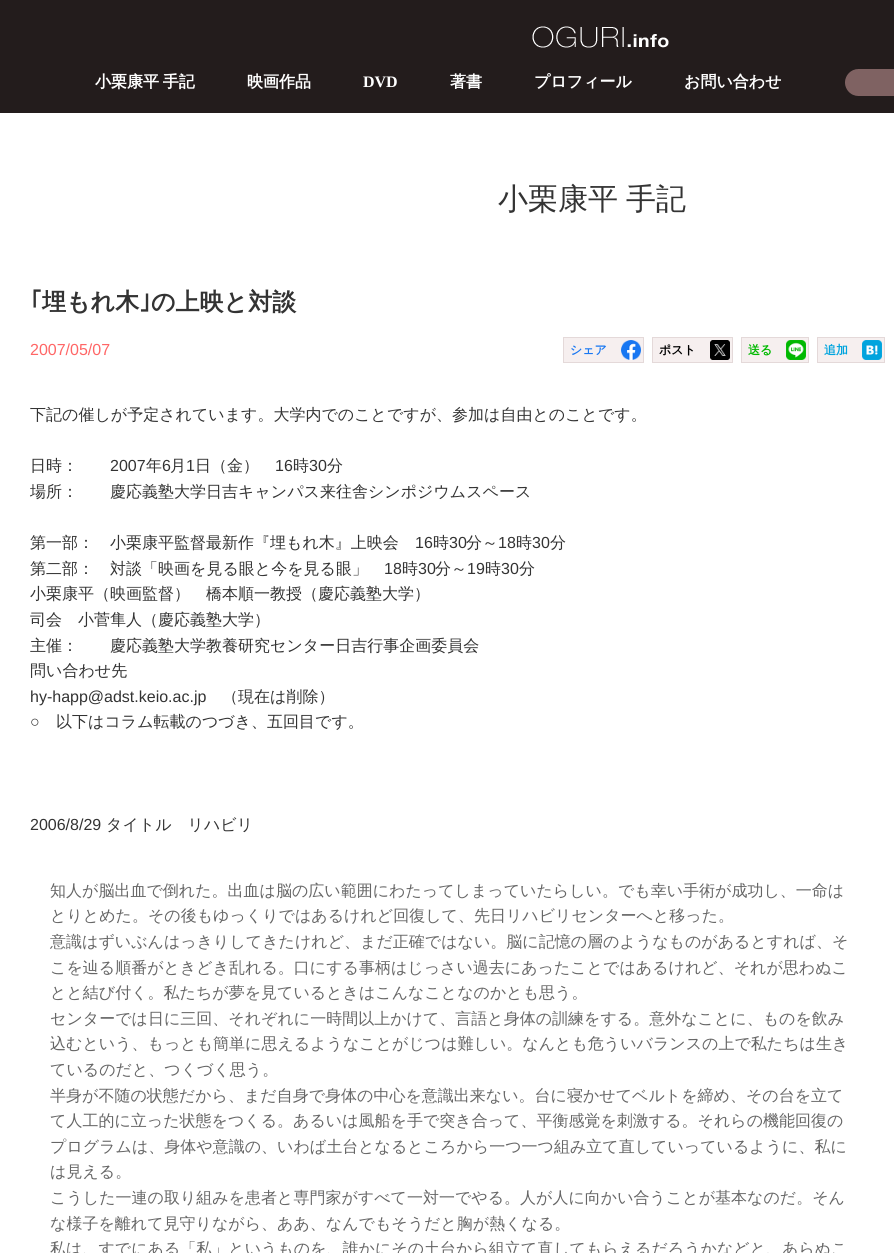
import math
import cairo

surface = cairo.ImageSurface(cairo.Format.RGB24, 894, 1253)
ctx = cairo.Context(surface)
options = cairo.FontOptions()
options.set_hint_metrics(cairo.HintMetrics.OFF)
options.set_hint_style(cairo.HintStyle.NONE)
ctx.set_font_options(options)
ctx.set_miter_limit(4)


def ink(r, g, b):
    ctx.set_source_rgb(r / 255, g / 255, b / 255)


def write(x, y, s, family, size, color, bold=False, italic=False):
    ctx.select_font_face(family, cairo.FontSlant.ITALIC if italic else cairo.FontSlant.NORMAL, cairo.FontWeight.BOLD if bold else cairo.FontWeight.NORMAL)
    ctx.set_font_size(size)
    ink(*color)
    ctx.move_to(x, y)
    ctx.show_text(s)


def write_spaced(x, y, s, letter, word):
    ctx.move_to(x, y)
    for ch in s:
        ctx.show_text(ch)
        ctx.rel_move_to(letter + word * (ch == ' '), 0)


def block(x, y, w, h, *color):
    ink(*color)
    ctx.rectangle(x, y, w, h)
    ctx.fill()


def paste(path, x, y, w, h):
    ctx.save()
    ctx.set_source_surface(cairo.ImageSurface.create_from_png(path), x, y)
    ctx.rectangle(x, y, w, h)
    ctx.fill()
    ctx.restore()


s1 = dict(family="WenQuanYi Zen Hei", size=16, color=(255, 255, 255), bold=True)
s2 = dict(family="Liberation Serif", size=16, color=(255, 255, 255), bold=True)
s3 = dict(family="IPAGothic", size=24, color=(51, 51, 51), bold=True)
s4 = dict(family="WenQuanYi Zen Hei", size=24, color=(51, 51, 51), bold=True)
s5 = dict(family="Liberation Sans", size=16, color=(255, 102, 102))
s6 = dict(family="WenQuanYi Zen Hei", size=12, color=(24, 119, 242), bold=True)
s7 = dict(family="WenQuanYi Zen Hei", size=12, color=(0, 0, 0), bold=True)
s8 = dict(family="WenQuanYi Zen Hei", size=12, color=(0, 185, 0), bold=True)
s9 = dict(family="WenQuanYi Zen Hei", size=12, color=(0, 164, 222), bold=True)
s10 = dict(family="WenQuanYi Zen Hei Medium", size=16, color=(51, 51, 51))
s11 = dict(family="Liberation Sans", size=16, color=(51, 51, 51))
s12 = dict(family="WenQuanYi Zen Hei Medium", size=16, color=(102, 102, 102))

ink(255, 255, 255)
ctx.paint()
block(0, 0, 894, 113, 35, 28, 28)
paste("pic1.png", 532, 26, 137, 22)
ctx.select_font_face("WenQuanYi Zen Hei", cairo.FontSlant.NORMAL, cairo.FontWeight.BOLD)
ctx.set_font_size(16)
ink(255, 255, 255)
write_spaced(95, 87, "小栗康平 手記", 0, -1)
write(247, 87, "映画作品", **s1)
write(363, 87, "DVD", **s2)
write(450, 87, "著書", **s1)
write(534, 87, "プロフィール", **s1)
write(684, 87, "お問い合わせ", **s1)
paste("pic2.png", 845, 69, 49, 27)
ctx.select_font_face("WenQuanYi Zen Hei Medium")
ctx.set_font_size(30)
ink(51, 51, 51)
write_spaced(498, 209, "小栗康平 手記", 0, -1)
write(30, 310, "｢", **s3)
write(42, 310, "埋もれ木", **s4)
write(139, 310, "｣", **s3)
write(151, 310, "の上映と対談", **s4)
write(30, 355, "2007/05/07", **s5)
block(564, 338, 79, 24, 246, 239, 239)
paste("pic3.png", 621, 340, 20, 20)
ctx.rectangle(563.5, 337.5, 80, 25)
ink(228, 217, 217)
ctx.set_line_width(1)
ctx.stroke()
write(570, 354, "シェア", **s6)
block(653, 338, 79, 24, 246, 239, 239)
paste("pic4.png", 710, 340, 20, 20)
ctx.rectangle(652.5, 337.5, 80, 25)
ink(228, 217, 217)
ctx.stroke()
write(659, 354, "ポスト", **s7)
block(742, 338, 66, 24, 246, 239, 239)
paste("pic5.png", 786, 340, 20, 20)
ctx.rectangle(741.5, 337.5, 67, 25)
ink(228, 217, 217)
ctx.stroke()
write(748, 354, "送る", **s8)
block(818, 338, 66, 24, 246, 239, 239)
paste("pic6.png", 862, 340, 20, 20)
ctx.rectangle(817.5, 337.5, 67, 25)
ink(228, 217, 217)
ctx.stroke()
write(824, 354, "追加", **s9)
write(30, 420, "下記の催しが予定されています。大学内でのことですが、参加は自由とのことです。", **s10)
write(30, 471, "日時：", **s10)
write(110, 471, "2007", **s11)
write(146, 471, "年", **s10)
write(162, 471, "6", **s11)
write(170, 471, "月", **s10)
write(186, 471, "1", **s11)
write(195, 471, "日（金）", **s10)
write(275, 471, "16", **s11)
write(293, 471, "時", **s10)
write(309, 471, "30", **s11)
write(327, 471, "分", **s10)
write(30, 497, "場所：　　慶応義塾大学日吉キャンパス来往舎シンポジウムスペース", **s10)
write(30, 548, "第一部：　小栗康平監督最新作『埋もれ木』上映会", **s10)
write(415, 548, "16", **s11)
write(433, 548, "時", **s10)
write(449, 548, "30", **s11)
write(466, 548, "分～", **s10)
write(498, 548, "18", **s11)
write(516, 548, "時", **s10)
write(532, 548, "30", **s11)
write(550, 548, "分", **s10)
write(30, 574, "第二部：　対談「映画を見る眼と今を見る眼」", **s10)
write(384, 574, "18", **s11)
write(402, 574, "時", **s10)
write(418, 574, "30", **s11)
write(435, 574, "分～", **s10)
write(467, 574, "19", **s11)
write(485, 574, "時", **s10)
write(501, 574, "30", **s11)
write(519, 574, "分", **s10)
write(30, 599, "小栗康平（映画監督）　橋本順一教授（慶応義塾大学）", **s10)
write(30, 625, "司会　小菅隼人（慶応義塾大学）", **s10)
write(30, 651, "主催：　　慶応義塾大学教養研究センター日吉行事企画委員会", **s10)
write(30, 676, "問い合わせ先", **s10)
write(30, 702, "hy-happ@adst.keio.ac.jp", **s11)
write(222, 702, "（現在は削除）", **s10)
write(30, 727, "○", **s11)
write(56, 727, "以下はコラム転載のつづき、五回目です。", **s10)
write(30, 830, "2006/8/29", **s11)
write(106, 830, "タイトル　リハビリ", **s10)
write(50, 896, "知人が脳出血で倒れた。出血は脳の広い範囲にわたってしまっていたらしい。でも幸い手術が成功し、一命は", **s12)
write(50, 921, "とりとめた。その後もゆっくりではあるけれど回復して、先日リハビリセンターへと移った。", **s12)
write(50, 947, "意識はずいぶんはっきりしてきたけれど、まだ正確ではない。脳に記憶の層のようなものがあるとすれば、そ", **s12)
write(50, 973, "こを辿る順番がときどき乱れる。口にする事柄はじっさい過去にあったことではあるけれど、それが思わぬこ", **s12)
write(50, 998, "とと結び付く。私たちが夢を見ているときはこんなことなのかとも思う。", **s12)
write(50, 1024, "センターでは日に三回、それぞれに一時間以上かけて、言語と身体の訓練をする。意外なことに、ものを飲み", **s12)
write(50, 1049, "込むという、もっとも簡単に思えるようなことがじつは難しい。なんとも危ういバランスの上で私たちは生き", **s12)
write(50, 1075, "ているのだと、つくづく思う。", **s12)
write(50, 1101, "半身が不随の状態だから、まだ自身で身体の中心を意識出来ない。台に寝かせてベルトを締め、その台を立て", **s12)
write(50, 1126, "て人工的に立った状態をつくる。あるいは風船を手で突き合って、平衡感覚を刺激する。それらの機能回復の", **s12)
write(50, 1152, "プログラムは、身体や意識の、いわば土台となるところから一つ一つ組み立て直していっているように、私に", **s12)
write(50, 1177, "は見える。", **s12)
write(50, 1203, "こうした一連の取り組みを患者と専門家がすべて一対一でやる。人が人に向かい合うことが基本なのだ。そん", **s12)
write(50, 1229, "な様子を離れて見守りながら、ああ、なんでもそうだと胸が熱くなる。", **s12)
write(50, 1254, "私は、すでにある「私」というものを、誰かにその土台から組立て直してもらえるだろうかなどと、あらぬこ", **s12)
surface.write_to_png("screenshot.png")
